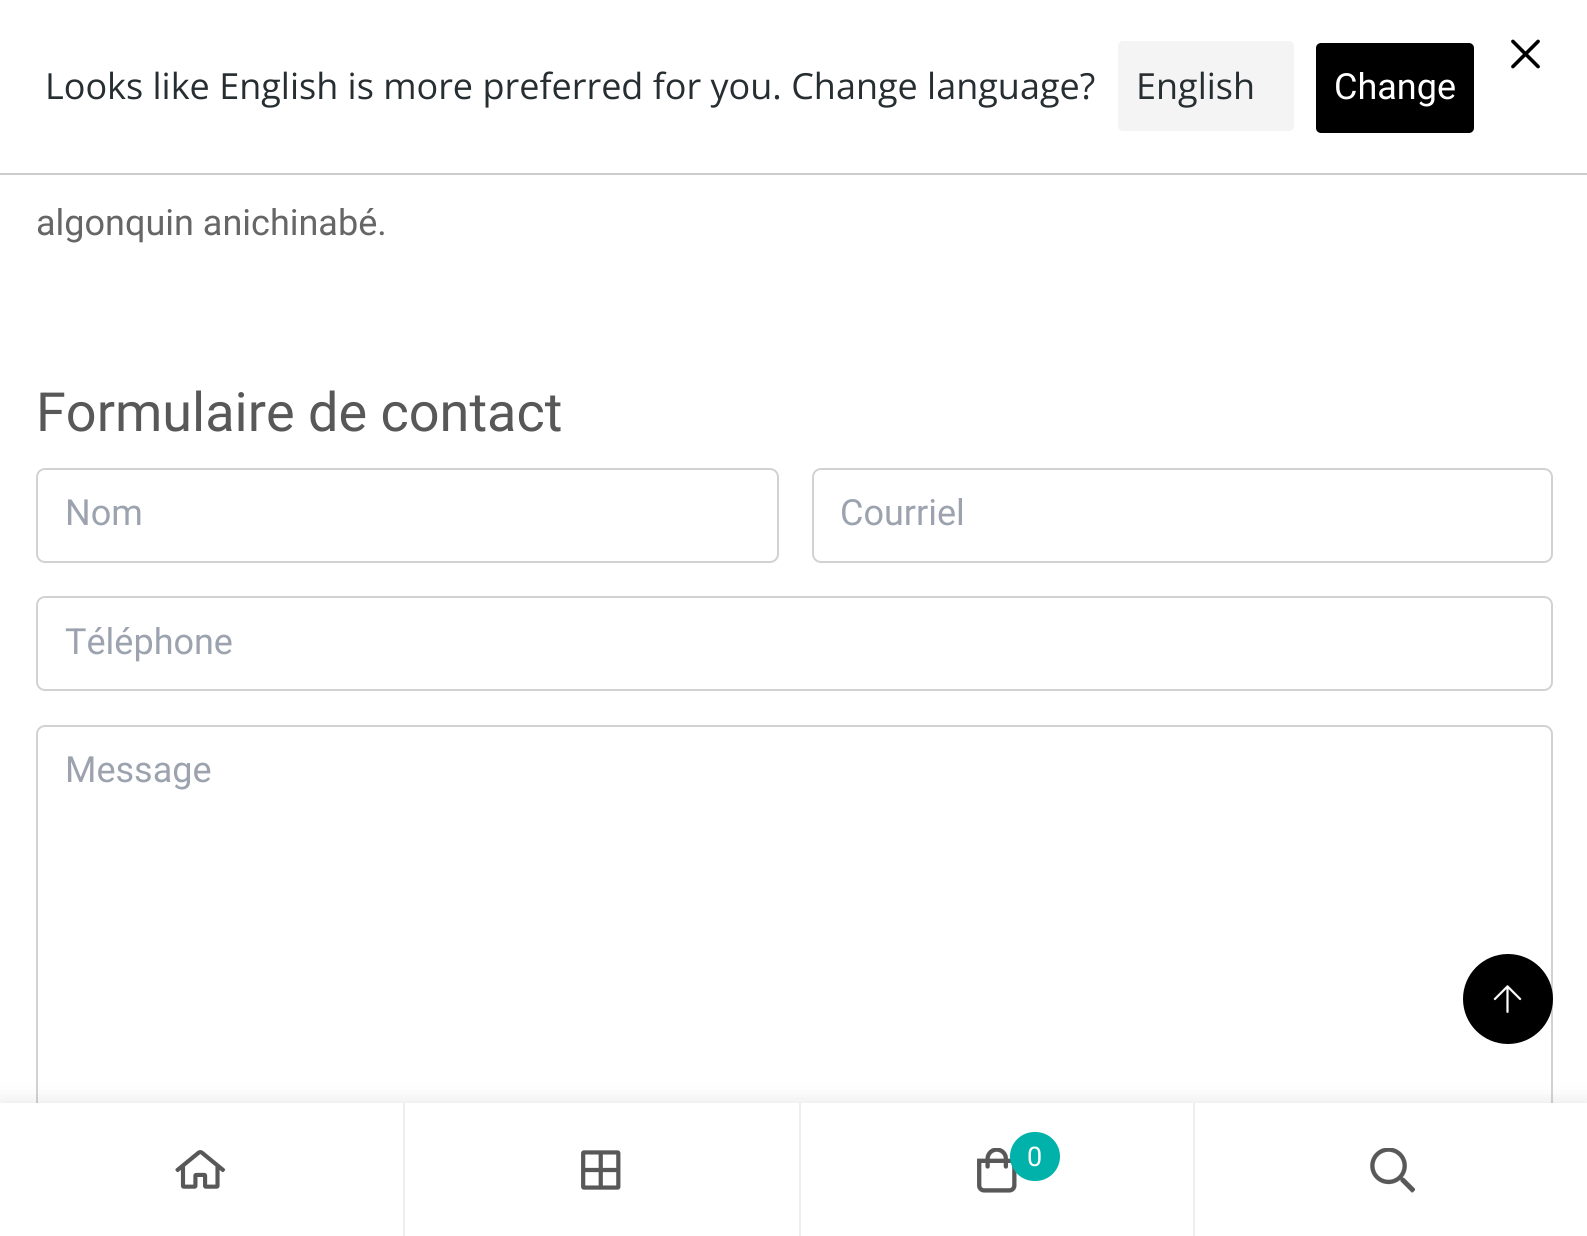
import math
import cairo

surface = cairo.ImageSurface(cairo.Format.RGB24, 1587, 1236)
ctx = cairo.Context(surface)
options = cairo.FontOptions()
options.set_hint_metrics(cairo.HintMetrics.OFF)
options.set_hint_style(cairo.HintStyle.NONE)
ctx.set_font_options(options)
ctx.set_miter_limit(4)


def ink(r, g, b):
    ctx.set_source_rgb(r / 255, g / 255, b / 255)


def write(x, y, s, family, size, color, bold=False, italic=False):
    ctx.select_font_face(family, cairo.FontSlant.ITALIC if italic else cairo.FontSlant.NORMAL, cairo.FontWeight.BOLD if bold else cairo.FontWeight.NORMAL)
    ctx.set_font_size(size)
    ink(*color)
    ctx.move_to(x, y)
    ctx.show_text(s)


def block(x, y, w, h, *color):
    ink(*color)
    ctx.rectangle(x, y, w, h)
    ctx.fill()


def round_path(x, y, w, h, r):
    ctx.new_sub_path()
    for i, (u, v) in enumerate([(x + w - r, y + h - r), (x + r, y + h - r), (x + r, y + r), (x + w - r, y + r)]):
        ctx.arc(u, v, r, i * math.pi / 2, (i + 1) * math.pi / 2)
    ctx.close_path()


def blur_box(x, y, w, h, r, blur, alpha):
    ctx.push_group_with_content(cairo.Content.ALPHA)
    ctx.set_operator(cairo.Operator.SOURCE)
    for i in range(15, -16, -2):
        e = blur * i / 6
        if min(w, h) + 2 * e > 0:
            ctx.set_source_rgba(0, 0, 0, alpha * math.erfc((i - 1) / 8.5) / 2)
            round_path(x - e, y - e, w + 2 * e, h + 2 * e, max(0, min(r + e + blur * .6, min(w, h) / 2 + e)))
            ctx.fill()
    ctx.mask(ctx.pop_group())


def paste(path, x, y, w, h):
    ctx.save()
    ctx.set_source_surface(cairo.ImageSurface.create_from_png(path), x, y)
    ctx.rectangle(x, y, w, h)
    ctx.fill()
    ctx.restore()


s1 = dict(family="Open Sans", size=36, color=(39, 46, 49))
s2 = dict(family="Roboto", size=36, color=(255, 255, 255))
s3 = dict(family="Roboto", size=36, color=(102, 102, 102))
s4 = dict(family="Roboto", size=54, color=(88, 88, 88))
s5 = dict(family="Roboto", size=36, color=(156, 163, 175))
s6 = dict(family="Roboto", size=27, color=(255, 255, 255))

ink(255, 255, 255)
ctx.paint()
block(0, 173, 1587, 2, 204, 204, 204)
paste("pic1.png", 1511, 39, 29, 30)
write(45, 99, "Looks like English is more preferred for you. Change language?", **s1)
ink(244, 244, 244)
round_path(1118, 41, 176, 90, 5)
ctx.fill()
write(1136, 99, "English", **s1)
ink(0, 0, 0)
round_path(1316, 43, 158, 90, 5)
ctx.fill()
write(1334, 99, "Change", **s2)
write(36, 235, "algonquin anichinabé.", **s3)
write(36, 431, "Formulaire de contact", **s4)
round_path(37, 469, 741, 93, 8)
ink(210, 210, 210)
ctx.stroke()
write(65, 525, "Nom", **s5)
round_path(813, 469, 739, 93, 8)
ink(210, 210, 210)
ctx.stroke()
write(840, 525, "Courriel", **s5)
round_path(37, 597, 1515, 93, 8)
ink(210, 210, 210)
ctx.stroke()
write(65, 654, "Téléphone", **s5)
round_path(37, 726, 1515, 470, 8)
ink(210, 210, 210)
ctx.stroke()
write(65, 782, "Message", **s5)
ink(0, 0, 0)
ctx.new_path()
ctx.arc(1508, 999, 44, 0, 2 * math.pi)
ctx.fill_preserve()
ctx.stroke()
paste("pic2.png", 1493, 985, 29, 28)
ink(0, 0, 0)
blur_box(0, 1103, 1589, 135, 0, 11, 0.11)
block(0, 1103, 1587, 133, 255, 255, 255)
block(403, 1103, 2, 133, 238, 238, 238)
paste("pic3.png", 175, 1150, 51, 39)
block(799, 1103, 2, 133, 238, 238, 238)
paste("pic4.png", 581, 1150, 40, 40)
block(1193, 1103, 2, 133, 238, 238, 238)
paste("pic5.png", 977, 1148, 40, 45)
ink(0, 178, 169)
round_path(1010, 1132, 50, 49, 24.5)
ctx.fill()
write(1027, 1166, "0", **s6)
paste("pic6.png", 1370, 1148, 45, 45)
surface.write_to_png("screenshot.png")
